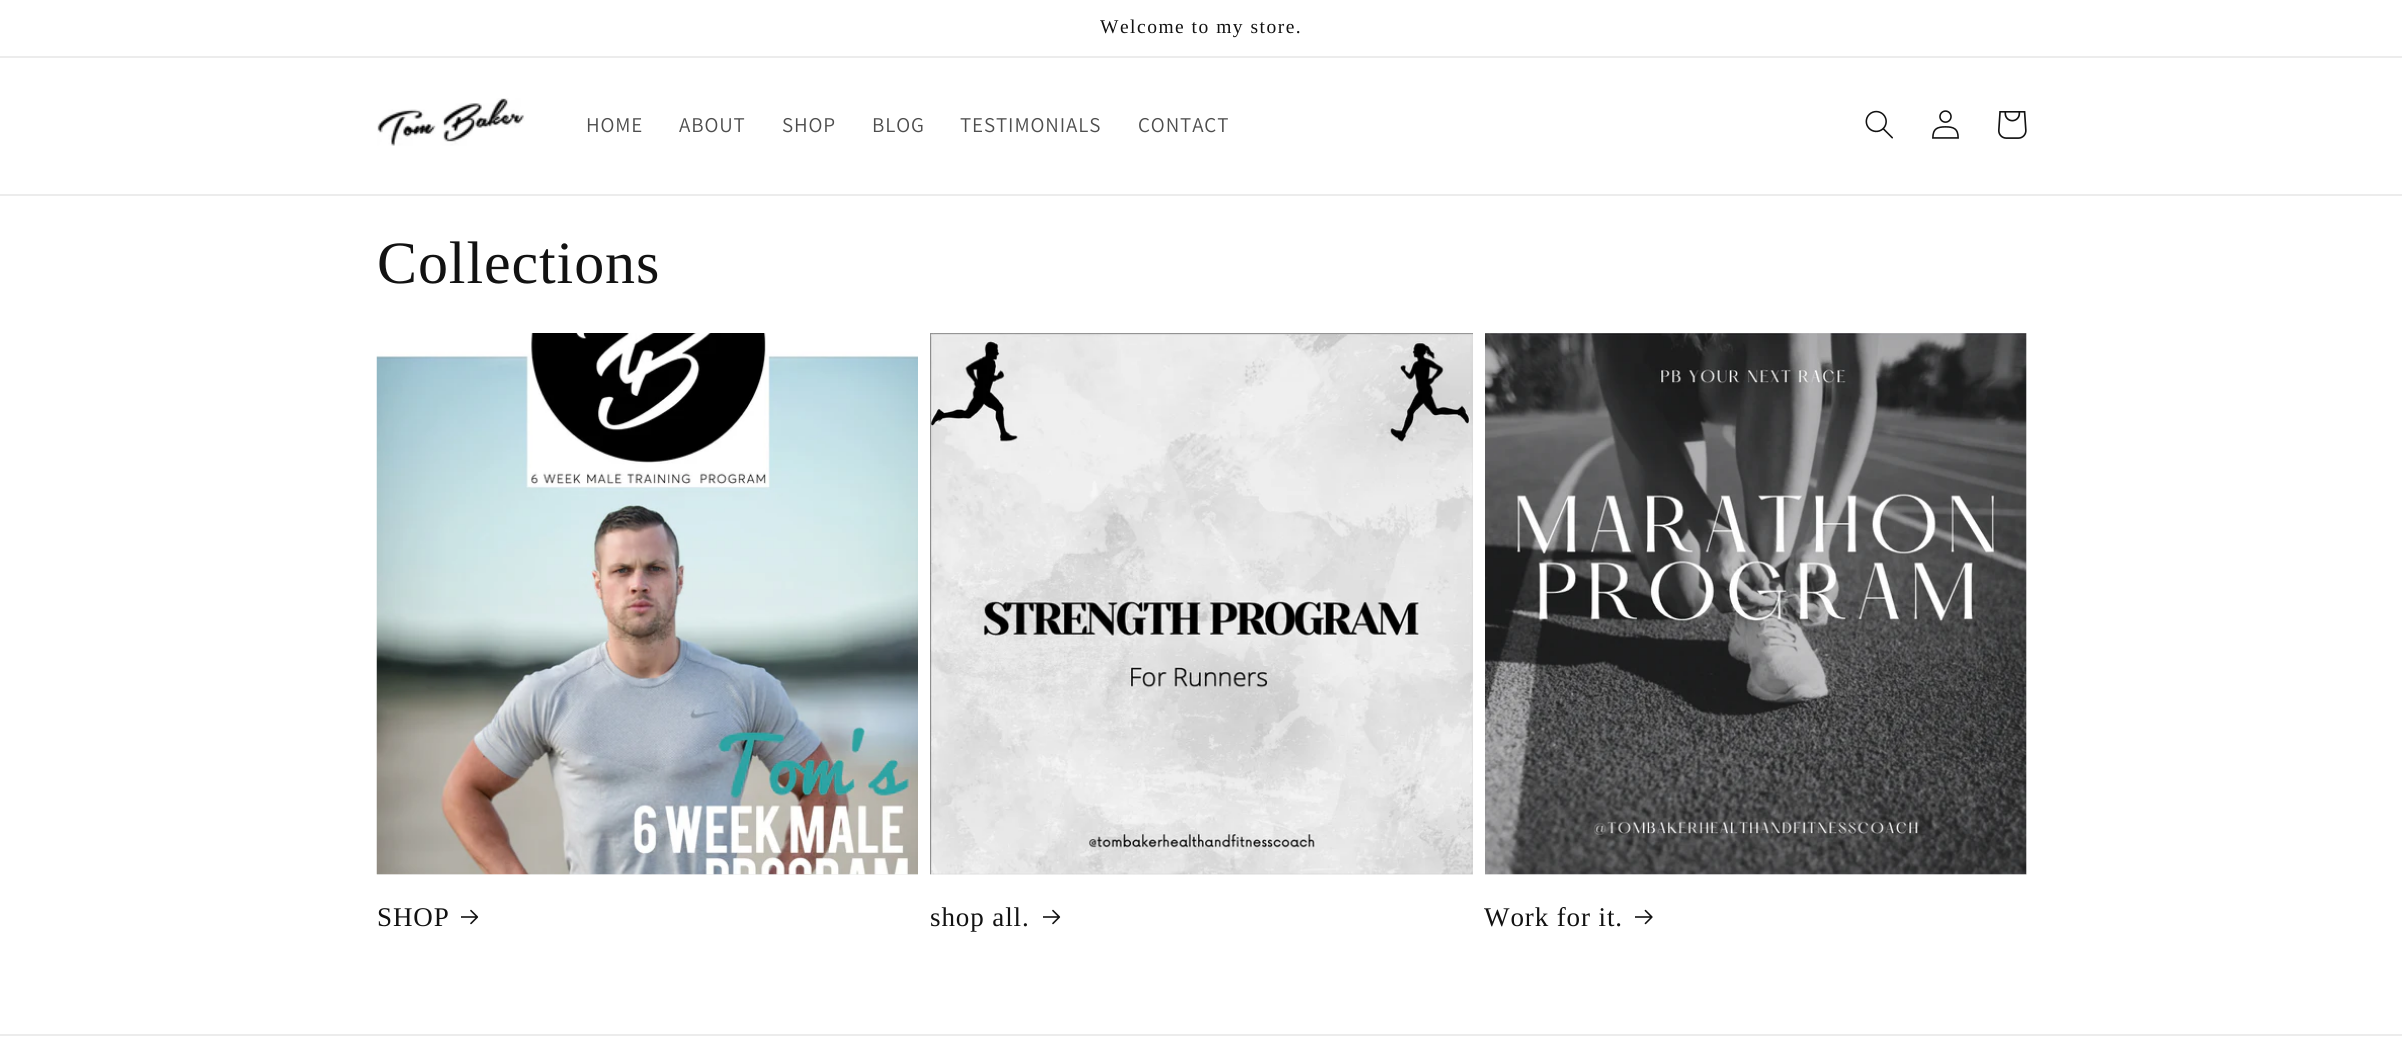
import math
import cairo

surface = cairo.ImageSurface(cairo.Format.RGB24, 2402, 1049)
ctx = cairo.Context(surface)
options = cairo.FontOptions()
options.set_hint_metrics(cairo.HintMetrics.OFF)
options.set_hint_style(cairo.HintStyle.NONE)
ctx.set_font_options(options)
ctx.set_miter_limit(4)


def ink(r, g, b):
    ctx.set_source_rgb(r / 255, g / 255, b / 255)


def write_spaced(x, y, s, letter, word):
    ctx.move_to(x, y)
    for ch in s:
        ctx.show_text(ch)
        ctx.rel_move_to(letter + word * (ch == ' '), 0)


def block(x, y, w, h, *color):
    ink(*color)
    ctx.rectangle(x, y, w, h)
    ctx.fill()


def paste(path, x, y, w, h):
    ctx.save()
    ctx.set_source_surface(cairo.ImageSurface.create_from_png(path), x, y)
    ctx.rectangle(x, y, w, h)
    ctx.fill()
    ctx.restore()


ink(255, 255, 255)
ctx.paint()
block(0, 56, 2402, 2, 236, 236, 236)
ctx.select_font_face("Liberation Serif")
ctx.set_font_size(19.5)
ink(18, 18, 18)
write_spaced(1100, 33, "Welcome to my store.", 1.5, 0)
block(0, 194, 2402, 2, 236, 236, 236)
paste("pic1.png", 377, 98, 148, 48)
ctx.select_font_face("Assistant")
ctx.set_font_size(21)
ink(77, 77, 77)
write_spaced(586, 132, "HOME", 0.9, 0)
write_spaced(679, 132, "ABOUT", 0.9, 0)
write_spaced(782, 132, "SHOP", 0.9, 0)
write_spaced(872, 132, "BLOG", 0.9, 0)
write_spaced(960, 132, "TESTIMONIALS", 0.9, 0)
write_spaced(1138, 132, "CONTACT", 0.9, 0)
paste("pic2.png", 1865, 110, 28, 29)
paste("pic3.png", 1932, 110, 27, 29)
paste("pic4.png", 1998, 111, 29, 28)
ctx.select_font_face("Liberation Serif")
ctx.set_font_size(60)
ink(18, 18, 18)
write_spaced(377, 283, "Collections", 0.9, 0)
block(377, 874, 541, 1, 243, 243, 243)
paste("pic5.png", 376, 333, 542, 542)
ctx.set_font_size(27)
ink(18, 18, 18)
write_spaced(377, 926, "SHOP", 0.9, 0)
paste("pic6.png", 461, 909, 18, 16)
block(930, 874, 543, 1, 243, 243, 243)
paste("pic7.png", 930, 333, 543, 542)
ink(18, 18, 18)
write_spaced(930, 926, "shop all.", 0.9, 0)
paste("pic6.png", 1043, 909, 18, 16)
block(1485, 333, 542, 542, 243, 243, 243)
paste("pic8.png", 1485, 333, 542, 542)
ink(18, 18, 18)
write_spaced(1484, 926, "Work for it.", 0.9, 0)
paste("pic9.png", 1635, 909, 18, 16)
block(0, 1034, 2402, 2, 236, 236, 236)
surface.write_to_png("screenshot.png")
